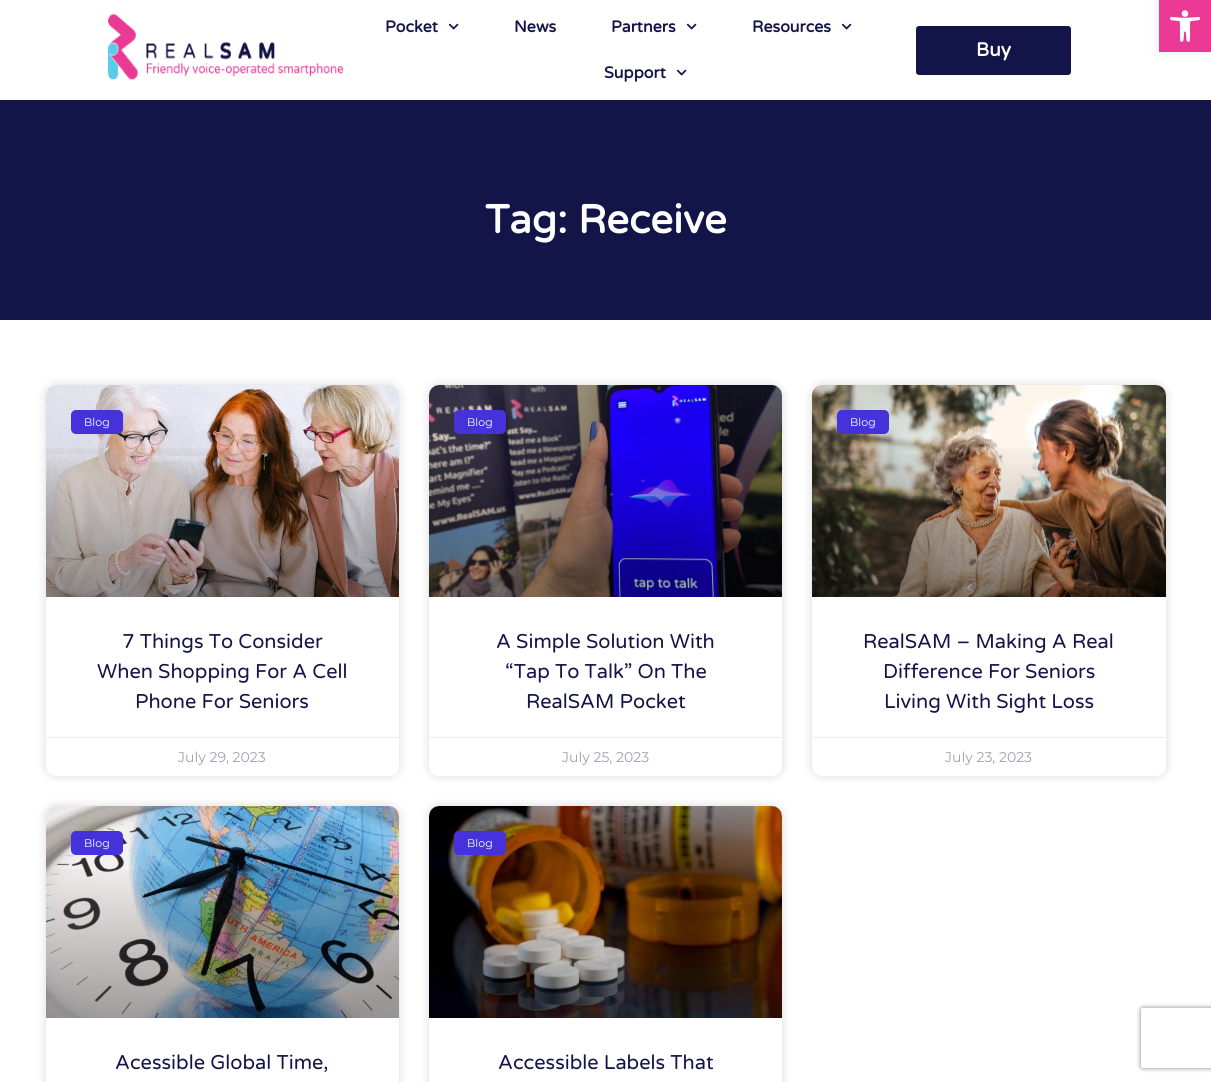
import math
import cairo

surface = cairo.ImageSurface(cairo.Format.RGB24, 1211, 1082)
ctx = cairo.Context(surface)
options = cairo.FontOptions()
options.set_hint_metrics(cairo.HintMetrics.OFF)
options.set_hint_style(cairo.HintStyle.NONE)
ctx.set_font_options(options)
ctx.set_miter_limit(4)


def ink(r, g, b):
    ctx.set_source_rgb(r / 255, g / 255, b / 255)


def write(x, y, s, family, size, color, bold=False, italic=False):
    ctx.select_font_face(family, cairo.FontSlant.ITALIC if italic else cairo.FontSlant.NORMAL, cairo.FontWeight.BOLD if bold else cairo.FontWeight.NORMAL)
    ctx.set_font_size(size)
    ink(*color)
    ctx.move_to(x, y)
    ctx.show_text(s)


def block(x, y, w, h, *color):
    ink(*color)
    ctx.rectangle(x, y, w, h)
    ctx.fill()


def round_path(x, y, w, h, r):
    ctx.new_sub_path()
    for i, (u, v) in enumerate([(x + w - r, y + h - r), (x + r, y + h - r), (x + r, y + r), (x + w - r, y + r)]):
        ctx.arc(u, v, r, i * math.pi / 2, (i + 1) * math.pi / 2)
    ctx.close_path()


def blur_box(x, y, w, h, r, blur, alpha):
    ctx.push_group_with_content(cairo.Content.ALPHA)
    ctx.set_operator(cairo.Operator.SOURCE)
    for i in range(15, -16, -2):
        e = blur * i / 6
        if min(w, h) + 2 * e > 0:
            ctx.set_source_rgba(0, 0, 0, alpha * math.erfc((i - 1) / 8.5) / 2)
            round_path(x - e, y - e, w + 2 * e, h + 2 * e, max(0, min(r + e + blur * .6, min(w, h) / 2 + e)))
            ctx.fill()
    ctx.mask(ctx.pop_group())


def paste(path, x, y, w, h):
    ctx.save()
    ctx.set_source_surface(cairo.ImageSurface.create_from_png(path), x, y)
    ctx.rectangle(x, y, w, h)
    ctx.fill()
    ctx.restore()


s1 = dict(family="Varela Round", size=16, color=(19, 20, 72), bold=True)
s2 = dict(family="Varela Round", size=19, color=(255, 255, 255), bold=True)
s3 = dict(family="Varela Round", size=40, color=(255, 255, 255), bold=True)
s4 = dict(family="Montserrat", size=11, color=(255, 255, 255))
s5 = dict(family="Varela Round", size=20, color=(19, 20, 72))
s6 = dict(family="Montserrat", size=14, color=(158, 162, 172))

ink(255, 255, 255)
ctx.paint()
paste("pic1.png", 107, 13, 237, 68)
write(385, 32, "Pocket", **s1)
paste("pic2.png", 448, 23, 11, 7)
write(514, 32, "News", **s1)
write(611, 32, "Partners", **s1)
paste("pic2.png", 686, 23, 11, 7)
write(752, 32, "Resources", **s1)
paste("pic2.png", 841, 23, 11, 7)
write(604, 78, "Support", **s1)
paste("pic2.png", 676, 69, 11, 7)
round_path(916, 26, 155, 49, 3)
ctx.fill()
write(976, 56, "Buy", **s2)
ink(0, 0, 0)
blur_box(1159, 0, 52, 52, 0, 5, 0.1)
block(1159, 0, 52, 52, 235, 57, 149)
paste("pic3.png", 1170, 10, 30, 32)
block(0, 100, 1211, 220, 19, 20, 72)
write(485, 233, "Tag: Receive", **s3)
ink(0, 0, 0)
blur_box(46, 385, 353, 391, 10, 5, 0.15)
ink(255, 255, 255)
round_path(46, 385, 353, 391, 10)
ctx.fill()
paste("pic4.png", 46, 385, 353, 212)
gradient = cairo.LinearGradient(223, 597, 223, 385)
gradient.add_color_stop_rgba(0, 0, 0, 0, 0.35)
gradient.add_color_stop_rgba(0.75, 0, 0, 0, 0)
ctx.set_source(gradient)
ctx.rectangle(46, 448, 353, 149)
ctx.fill()
ink(70, 50, 218)
round_path(71, 410, 52, 24, 5)
ctx.fill()
write(84, 426, "Blog", **s4)
write(122, 648, "7 Things To Consider", **s5)
write(97, 678, "When Shopping For A Cell", **s5)
write(135, 708, "Phone For Seniors", **s5)
block(46, 737, 353, 1, 236, 236, 238)
write(178, 762, "July 29, 2023", **s6)
ink(0, 0, 0)
blur_box(429, 385, 353, 391, 10, 5, 0.15)
ink(255, 255, 255)
round_path(429, 385, 353, 391, 10)
ctx.fill()
paste("pic5.png", 429, 385, 353, 212)
gradient = cairo.LinearGradient(606, 597, 606, 385)
gradient.add_color_stop_rgba(0, 0, 0, 0, 0.35)
gradient.add_color_stop_rgba(0.75, 0, 0, 0, 0)
ctx.set_source(gradient)
ctx.rectangle(429, 448, 353, 149)
ctx.fill()
ink(70, 50, 218)
round_path(454, 410, 52, 24, 5)
ctx.fill()
write(467, 426, "Blog", **s4)
write(496, 648, "A Simple Solution With", **s5)
write(505, 678, "“Tap To Talk” On The", **s5)
write(526, 708, "RealSAM Pocket", **s5)
block(429, 737, 353, 1, 236, 236, 238)
write(562, 762, "July 25, 2023", **s6)
ink(0, 0, 0)
blur_box(812, 385, 354, 391, 10, 5, 0.15)
ink(255, 255, 255)
round_path(812, 385, 354, 391, 10)
ctx.fill()
paste("pic6.png", 812, 385, 354, 212)
gradient = cairo.LinearGradient(989, 597, 989, 385)
gradient.add_color_stop_rgba(0, 0, 0, 0, 0.35)
gradient.add_color_stop_rgba(0.75, 0, 0, 0, 0)
ctx.set_source(gradient)
ctx.rectangle(812, 448, 354, 149)
ctx.fill()
ink(70, 50, 218)
round_path(837, 410, 52, 24, 5)
ctx.fill()
write(850, 426, "Blog", **s4)
write(863, 648, "RealSAM – Making A Real", **s5)
write(883, 678, "Difference For Seniors", **s5)
write(884, 708, "Living With Sight Loss", **s5)
block(812, 737, 354, 1, 236, 236, 238)
write(945, 762, "July 23, 2023", **s6)
ink(0, 0, 0)
blur_box(46, 806, 353, 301, 10, 5, 0.15)
ink(255, 255, 255)
round_path(46, 806, 353, 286, 10)
ctx.fill()
paste("pic7.png", 46, 806, 353, 212)
gradient = cairo.LinearGradient(223, 1018, 223, 806)
gradient.add_color_stop_rgba(0, 0, 0, 0, 0.35)
gradient.add_color_stop_rgba(0.75, 0, 0, 0, 0)
ctx.set_source(gradient)
ctx.rectangle(46, 869, 353, 149)
ctx.fill()
ink(70, 50, 218)
round_path(71, 831, 52, 24, 5)
ctx.fill()
write(84, 847, "Blog", **s4)
write(115, 1069, "Acessible Global Time,", **s5)
ink(0, 0, 0)
blur_box(429, 806, 353, 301, 10, 5, 0.15)
ink(255, 255, 255)
round_path(429, 806, 353, 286, 10)
ctx.fill()
paste("pic8.png", 429, 806, 353, 212)
gradient = cairo.LinearGradient(606, 1018, 606, 806)
gradient.add_color_stop_rgba(0, 0, 0, 0, 0.35)
gradient.add_color_stop_rgba(0.75, 0, 0, 0, 0)
ctx.set_source(gradient)
ctx.rectangle(429, 869, 353, 149)
ctx.fill()
ink(70, 50, 218)
round_path(454, 831, 52, 24, 5)
ctx.fill()
write(467, 847, "Blog", **s4)
write(498, 1069, "Accessible Labels That", **s5)
ctx.save()
ctx.set_fill_rule(cairo.FillRule.EVEN_ODD)
ctx.new_path()
ctx.move_to(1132, 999)
ctx.line_to(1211, 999)
ctx.line_to(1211, 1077)
ctx.line_to(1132, 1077)
ctx.close_path()
ctx.move_to(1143, 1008)
ctx.line_to(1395, 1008)
ctx.curve_to(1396, 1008, 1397, 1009, 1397, 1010)
ctx.line_to(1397, 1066)
ctx.curve_to(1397, 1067, 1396, 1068, 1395, 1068)
ctx.line_to(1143, 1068)
ctx.curve_to(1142, 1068, 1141, 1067, 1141, 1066)
ctx.line_to(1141, 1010)
ctx.curve_to(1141, 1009, 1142, 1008, 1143, 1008)
ctx.close_path()
ctx.clip()
ink(128, 128, 128)
blur_box(1141, 1008, 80, 60, 2, 2.5, 1)
ctx.restore()
surface.write_to_png("screenshot.png")
